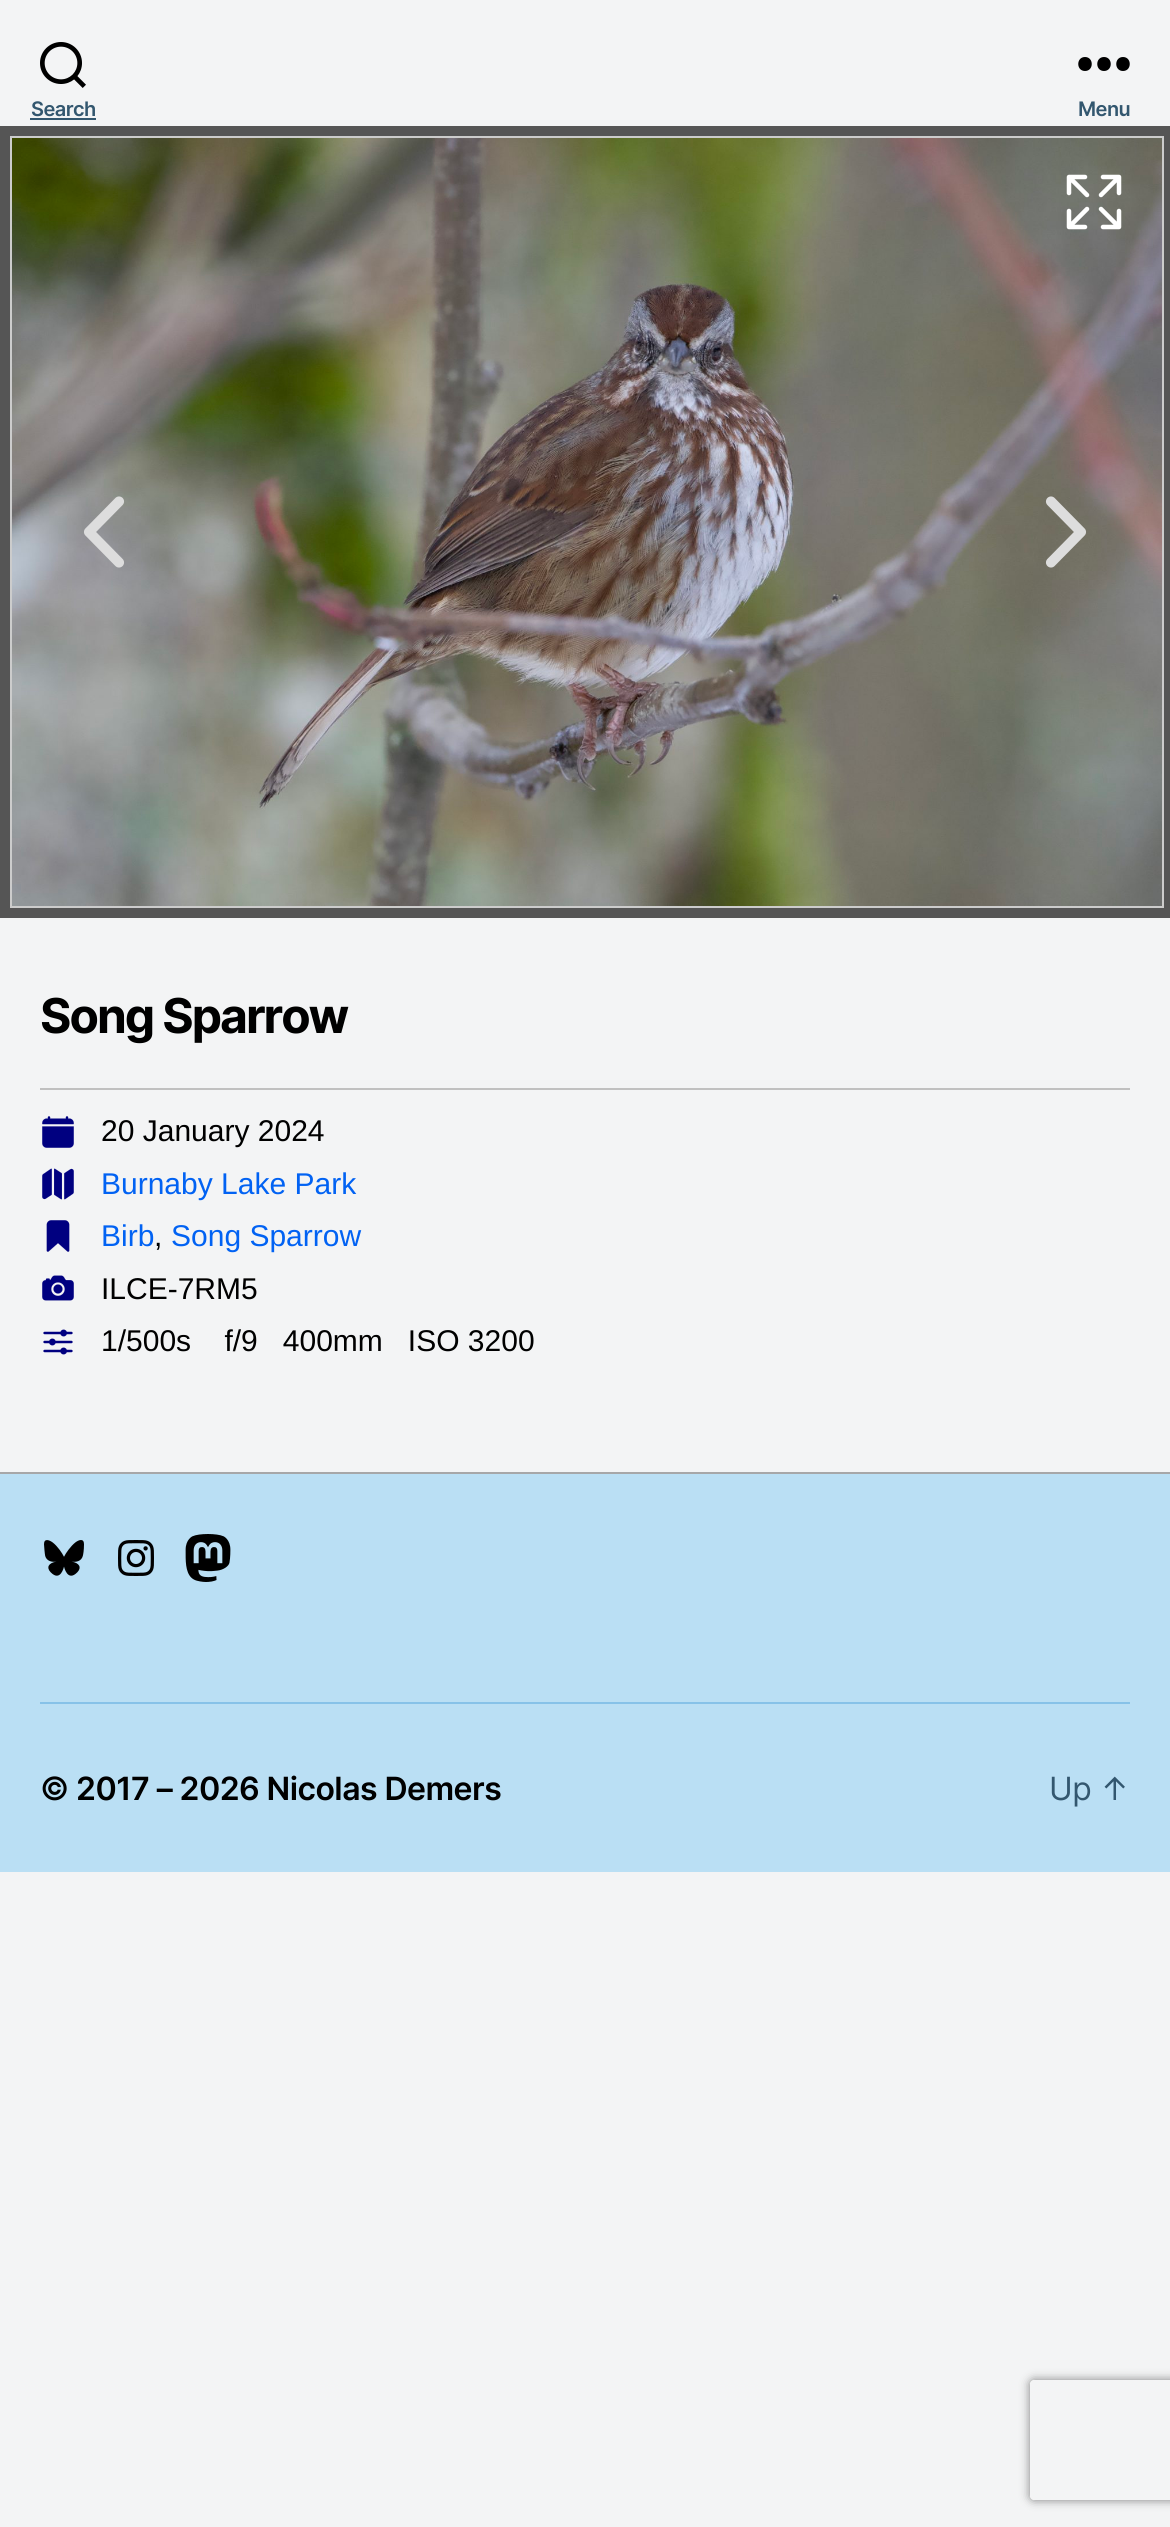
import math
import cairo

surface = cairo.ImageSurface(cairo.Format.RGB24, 1170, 2527)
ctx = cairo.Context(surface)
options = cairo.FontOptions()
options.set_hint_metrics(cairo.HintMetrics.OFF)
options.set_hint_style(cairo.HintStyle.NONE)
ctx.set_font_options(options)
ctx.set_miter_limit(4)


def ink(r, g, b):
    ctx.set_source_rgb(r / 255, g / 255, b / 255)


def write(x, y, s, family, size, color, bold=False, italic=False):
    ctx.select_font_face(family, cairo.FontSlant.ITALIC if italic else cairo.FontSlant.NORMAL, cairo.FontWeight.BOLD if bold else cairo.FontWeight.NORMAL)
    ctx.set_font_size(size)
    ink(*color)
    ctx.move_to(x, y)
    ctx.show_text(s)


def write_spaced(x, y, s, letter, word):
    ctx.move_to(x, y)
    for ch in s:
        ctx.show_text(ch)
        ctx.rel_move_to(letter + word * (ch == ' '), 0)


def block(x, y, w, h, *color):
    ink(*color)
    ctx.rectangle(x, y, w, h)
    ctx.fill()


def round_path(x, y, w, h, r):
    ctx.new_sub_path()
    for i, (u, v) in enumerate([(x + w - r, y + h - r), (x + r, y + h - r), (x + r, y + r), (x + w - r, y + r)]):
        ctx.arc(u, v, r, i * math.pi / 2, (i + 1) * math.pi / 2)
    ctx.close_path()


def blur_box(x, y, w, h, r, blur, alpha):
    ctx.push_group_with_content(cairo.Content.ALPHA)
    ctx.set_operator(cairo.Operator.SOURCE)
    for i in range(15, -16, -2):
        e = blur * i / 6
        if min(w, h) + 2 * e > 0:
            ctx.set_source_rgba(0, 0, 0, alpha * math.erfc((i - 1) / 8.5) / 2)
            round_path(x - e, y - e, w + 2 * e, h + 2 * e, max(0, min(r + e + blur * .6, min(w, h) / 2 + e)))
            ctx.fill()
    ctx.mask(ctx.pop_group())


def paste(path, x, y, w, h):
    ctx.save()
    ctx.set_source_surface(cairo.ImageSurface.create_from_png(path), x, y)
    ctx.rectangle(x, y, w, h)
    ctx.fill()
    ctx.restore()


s1 = dict(family="Liberation Sans", size=30, color=(0, 0, 0))
s2 = dict(family="Liberation Sans", size=30, color=(1, 98, 243))

ink(243, 244, 245)
ctx.paint()
paste("pic1.png", 40, 42, 46, 46)
ctx.select_font_face("Inter SemiBold")
ctx.set_font_size(20)
ink(51, 87, 111)
write_spaced(31, 116, "Search", -0.55, 0)
block(30, 118, 66, 2, 51, 87, 111)
ink(0, 0, 0)
ctx.set_fill_rule(cairo.FillRule.EVEN_ODD)
ctx.new_path()
ctx.move_to(1085, 71)
ctx.curve_to(1076, 71, 1076, 57, 1085, 57)
ctx.curve_to(1094, 57, 1094, 71, 1085, 71)
ctx.close_path()
ctx.move_to(1104, 71)
ctx.curve_to(1095, 71, 1095, 57, 1104, 57)
ctx.curve_to(1113, 57, 1113, 71, 1104, 71)
ctx.close_path()
ctx.move_to(1123, 71)
ctx.curve_to(1114, 71, 1114, 57, 1123, 57)
ctx.curve_to(1132, 57, 1132, 71, 1123, 71)
ctx.close_path()
ctx.fill()
ink(51, 87, 111)
write_spaced(1078, 116, "Menu", -0.55, 0)
block(0, 126, 1170, 792, 85, 85, 85)
ctx.rectangle(11, 137, 1152, 770)
ink(204, 204, 204)
ctx.stroke()
paste("pic2.png", 12, 138, 1150, 768)
ctx.new_path()
ctx.move_to(1119, 211)
ctx.line_to(1119, 227)
ctx.line_to(1103, 227)
ctx.move_to(1117.5, 225.5)
ctx.line_to(1101, 209)
ctx.move_to(1069, 193)
ctx.line_to(1069, 177)
ctx.line_to(1085, 177)
ctx.move_to(1070.5, 178.5)
ctx.line_to(1087, 195)
ctx.move_to(1103, 177)
ctx.line_to(1119, 177)
ctx.line_to(1119, 193)
ctx.move_to(1117.5, 178.5)
ctx.line_to(1101, 195)
ctx.move_to(1085, 227)
ctx.line_to(1069, 227)
ctx.line_to(1069, 211)
ctx.move_to(1070.5, 225.5)
ctx.line_to(1087, 209)
ink(255, 255, 255)
ctx.set_line_width(4.5)
ctx.set_line_cap(cairo.LineCap.ROUND)
ctx.set_line_join(cairo.LineJoin.ROUND)
ctx.stroke()
ctx.new_path()
ctx.move_to(119, 501.5)
ctx.line_to(89, 532)
ctx.line_to(119, 562.5)
ink(221, 221, 221)
ctx.set_line_width(10.1)
ctx.stroke()
ctx.new_path()
ctx.move_to(1051, 501.5)
ctx.line_to(1081, 532)
ctx.line_to(1051, 562.5)
ctx.stroke()
ctx.select_font_face("Inter", cairo.FontSlant.NORMAL, cairo.FontWeight.BOLD)
ctx.set_font_size(48)
ink(0, 0, 0)
write_spaced(40, 1033, "Song Sparrow", -2, 0)
block(40, 1088, 1090, 2, 192, 192, 192)
paste("pic3.png", 42, 1116, 32, 32)
write(101, 1141, "20 January 2024", **s1)
paste("pic4.png", 42, 1168, 32, 32)
write(101, 1194, "Burnaby Lake Park", **s2)
paste("pic5.png", 46, 1220, 24, 32)
write(101, 1246, "Birb", **s2)
write(154, 1246, ",", **s1)
write(171, 1246, "Song Sparrow", **s2)
paste("pic6.png", 42, 1275, 32, 26)
write(101, 1299, "ILCE-7RM5", **s1)
paste("pic7.png", 43, 1329, 30, 26)
write(101, 1351, "1/500s    f/9   400mm   ISO 3200", **s1)
block(0, 1474, 1170, 398, 186, 223, 244)
block(0, 1472, 1170, 2, 167, 167, 168)
block(40, 1702, 1090, 2, 135, 194, 232)
paste("pic8.png", 44, 1540, 40, 36)
paste("pic9.png", 118, 1540, 36, 36)
paste("pic10.png", 185, 1534, 46, 48)
ctx.select_font_face("Inter SemiBold")
ctx.set_font_size(32)
ink(0, 0, 0)
write_spaced(40, 1800, "© 2017 – 2026 Nicolas Demers", -0.55, 0)
ctx.select_font_face("Inter")
ink(51, 87, 111)
write_spaced(1049, 1800, "Up ↑", -0.55, 0)
ctx.save()
ctx.new_path()
ctx.move_to(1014, 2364)
ctx.line_to(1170, 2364)
ctx.line_to(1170, 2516)
ctx.line_to(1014, 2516)
ctx.close_path()
ctx.move_to(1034, 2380)
ctx.line_to(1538, 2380)
ctx.curve_to(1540, 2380, 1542, 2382, 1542, 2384)
ctx.line_to(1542, 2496)
ctx.curve_to(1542, 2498, 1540, 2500, 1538, 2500)
ctx.line_to(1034, 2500)
ctx.curve_to(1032, 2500, 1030, 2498, 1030, 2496)
ctx.line_to(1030, 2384)
ctx.curve_to(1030, 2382, 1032, 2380, 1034, 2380)
ctx.close_path()
ctx.clip()
ink(128, 128, 128)
blur_box(1030, 2380, 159, 120, 4, 5, 1)
ctx.restore()
surface.write_to_png("screenshot.png")
